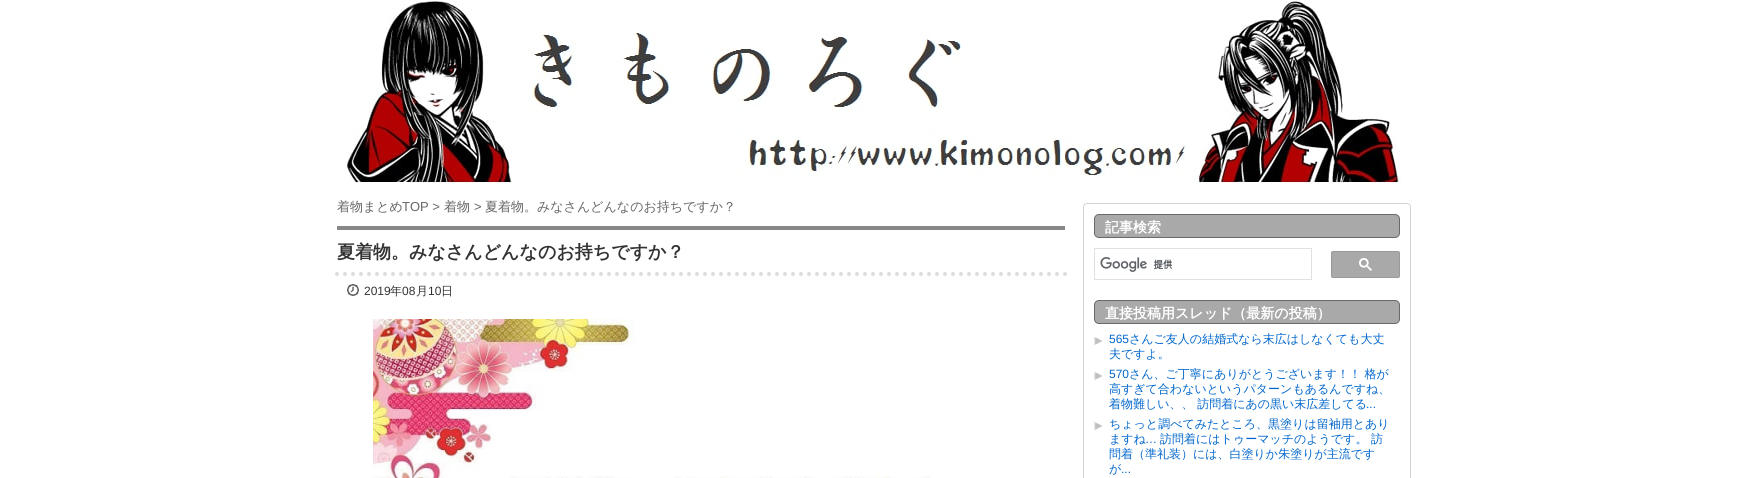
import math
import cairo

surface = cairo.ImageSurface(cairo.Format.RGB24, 1747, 478)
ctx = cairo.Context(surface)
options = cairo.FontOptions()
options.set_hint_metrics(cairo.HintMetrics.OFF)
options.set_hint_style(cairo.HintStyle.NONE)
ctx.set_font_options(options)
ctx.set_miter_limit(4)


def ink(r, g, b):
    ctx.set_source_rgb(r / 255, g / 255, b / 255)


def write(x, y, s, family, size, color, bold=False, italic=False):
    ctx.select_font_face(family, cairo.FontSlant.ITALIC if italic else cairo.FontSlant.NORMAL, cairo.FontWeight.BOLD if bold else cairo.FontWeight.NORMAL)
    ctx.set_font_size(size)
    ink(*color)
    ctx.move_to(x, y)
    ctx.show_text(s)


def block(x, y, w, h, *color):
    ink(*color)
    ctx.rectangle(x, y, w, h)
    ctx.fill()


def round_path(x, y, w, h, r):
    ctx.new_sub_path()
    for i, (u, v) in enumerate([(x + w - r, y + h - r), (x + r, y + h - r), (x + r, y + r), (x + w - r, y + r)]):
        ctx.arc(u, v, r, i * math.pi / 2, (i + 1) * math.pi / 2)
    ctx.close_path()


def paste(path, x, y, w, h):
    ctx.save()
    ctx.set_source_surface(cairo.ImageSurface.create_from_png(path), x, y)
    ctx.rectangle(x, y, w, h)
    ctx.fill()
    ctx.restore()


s1 = dict(family="WenQuanYi Zen Hei Medium", size=13, color=(102, 102, 102))
s2 = dict(family="Liberation Sans", size=13, color=(102, 102, 102))
s3 = dict(family="WenQuanYi Zen Hei", size=18, color=(51, 51, 51), bold=True)
s4 = dict(family="Liberation Sans", size=12, color=(51, 51, 51))
s5 = dict(family="WenQuanYi Zen Hei Medium", size=12, color=(51, 51, 51))
s6 = dict(family="WenQuanYi Zen Hei", size=14, color=(255, 255, 255), bold=True)
s7 = dict(family="Liberation Sans", size=12, color=(0, 102, 204))
s8 = dict(family="WenQuanYi Zen Hei Medium", size=12, color=(0, 102, 204))

ink(255, 255, 255)
ctx.paint()
paste("pic1.png", 346, 0, 1055, 183)
write(337, 211, "着物まとめ", **s1)
write(402, 211, "TOP >", **s2)
write(444, 211, "着物", **s1)
write(474, 211, ">", **s2)
write(485, 211, "夏着物。みなさんどんなのお持ちですか？", **s1)
block(337, 226, 728, 4, 135, 135, 135)
ctx.new_path()
ctx.move_to(337, 274)
ctx.line_to(1065, 274)
ink(220, 220, 220)
ctx.set_line_width(4)
ctx.set_line_cap(cairo.LineCap.ROUND)
ctx.set_dash([0, 8])
ctx.stroke()
write(337, 258, "夏着物。みなさんどんなのお持ちですか？", **s3)
paste("pic2.png", 347, 284, 12, 12)
write(364, 295, "2019", **s4)
write(390, 295, "年", **s5)
write(402, 295, "08", **s4)
write(416, 295, "月", **s5)
write(428, 295, "10", **s4)
write(441, 295, "日", **s5)
paste("pic3.png", 373, 319, 557, 159)
round_path(1083.5, 203.5, 327, 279, 3.5)
ink(211, 211, 211)
ctx.set_line_width(1)
ctx.set_line_cap(cairo.LineCap.BUTT)
ctx.set_dash([])
ctx.stroke()
ink(169, 169, 169)
round_path(1094.5, 214.5, 305, 23, 4.5)
ctx.fill_preserve()
ink(105, 105, 105)
ctx.stroke()
write(1105, 232, "記事検索", **s6)
ctx.rectangle(1094.5, 248.5, 217, 31)
ink(223, 225, 229)
ctx.stroke()
paste("pic4.png", 1100, 257, 73, 15)
ink(169, 169, 169)
round_path(1331.5, 251.5, 68, 26, 1.5)
ctx.fill_preserve()
ink(153, 153, 153)
ctx.stroke()
paste("pic5.png", 1359, 258, 13, 13)
ink(169, 169, 169)
round_path(1094.5, 300.5, 305, 23, 4.5)
ctx.fill_preserve()
ink(105, 105, 105)
ctx.stroke()
write(1105, 318, "直接投稿用スレッド（最新の投稿）", **s6)
paste("pic6.png", 1094, 337, 8, 8)
write(1109, 343, "565", **s7)
write(1129, 343, "さんご友人の結婚式なら末広はしなくても大丈", **s8)
write(1109, 358, "夫ですよ。", **s8)
paste("pic6.png", 1094, 372, 8, 8)
write(1109, 378, "570", **s7)
write(1129, 378, "さん、ご丁寧にありがとうございます！！ 格が", **s8)
write(1109, 393, "高すぎて合わないというパターンもあるんですね、", **s8)
write(1109, 408, "着物難しい、、 訪問着にあの黒い末広差してる", **s8)
write(1366, 408, "...", **s7)
paste("pic6.png", 1094, 422, 8, 8)
write(1109, 428, "ちょっと調べてみたところ、黒塗りは留袖用とあり", **s8)
write(1109, 443, "ますね", **s8)
write(1145, 443, "…", **s7)
write(1160, 443, "訪問着にはトゥーマッチのようです。 訪", **s8)
write(1109, 458, "問着（準礼装）には、白塗りか朱塗りが主流です", **s8)
write(1109, 473, "が", **s8)
write(1121, 473, "...", **s7)
surface.write_to_png("screenshot.png")
